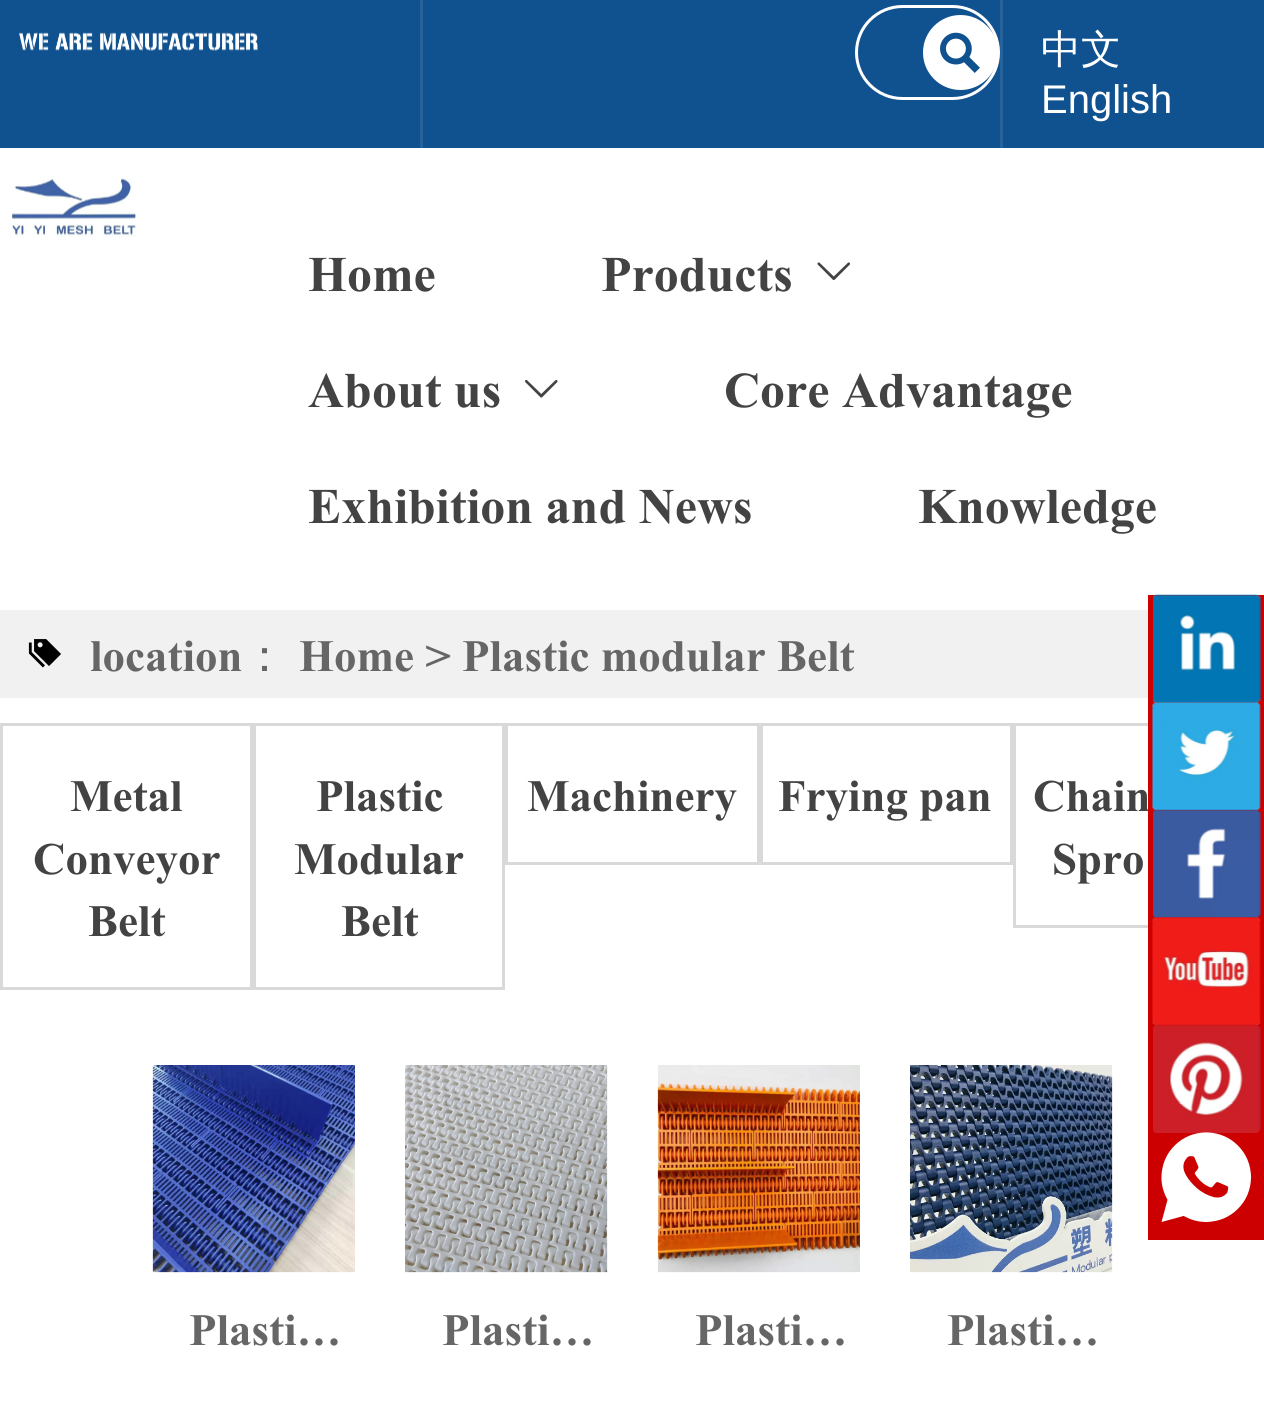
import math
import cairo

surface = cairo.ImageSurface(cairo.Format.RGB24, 1264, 1413)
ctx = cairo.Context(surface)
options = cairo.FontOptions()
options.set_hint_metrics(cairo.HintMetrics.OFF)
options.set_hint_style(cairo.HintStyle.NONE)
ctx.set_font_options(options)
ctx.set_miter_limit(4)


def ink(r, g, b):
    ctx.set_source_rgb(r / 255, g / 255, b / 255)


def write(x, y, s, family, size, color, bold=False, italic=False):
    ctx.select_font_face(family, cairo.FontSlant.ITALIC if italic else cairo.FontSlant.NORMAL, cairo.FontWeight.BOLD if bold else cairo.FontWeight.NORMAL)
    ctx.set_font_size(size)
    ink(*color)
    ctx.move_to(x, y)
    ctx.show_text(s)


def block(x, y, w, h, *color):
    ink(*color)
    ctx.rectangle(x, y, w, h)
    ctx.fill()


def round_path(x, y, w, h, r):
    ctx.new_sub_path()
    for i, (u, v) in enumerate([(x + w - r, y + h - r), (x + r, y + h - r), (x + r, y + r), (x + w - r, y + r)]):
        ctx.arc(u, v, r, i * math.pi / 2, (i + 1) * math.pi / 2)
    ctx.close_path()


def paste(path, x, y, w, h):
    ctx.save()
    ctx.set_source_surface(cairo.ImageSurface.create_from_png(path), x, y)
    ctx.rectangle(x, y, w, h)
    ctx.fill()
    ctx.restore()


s1 = dict(family="WenQuanYi Zen Hei Medium", size=40, color=(255, 255, 255))
s2 = dict(family="Liberation Sans", size=40, color=(255, 255, 255))
s3 = dict(family="Times New Roman", size=50, color=(67, 67, 67), bold=True)
s4 = dict(family="Times New Roman", size=45, color=(102, 102, 102), bold=True)
s5 = dict(family="WenQuanYi Zen Hei Medium", size=45, color=(102, 102, 102))
s6 = dict(family="Times New Roman", size=45, color=(67, 67, 67), bold=True)

ink(255, 255, 255)
ctx.paint()
block(0, 0, 1264, 148, 16, 81, 143)
block(420, 0, 3, 148, 40, 98, 154)
paste("pic1.png", 19, 32, 239, 19)
block(1000, 0, 3, 148, 40, 98, 154)
round_path(856.5, 6.5, 142, 92, 46)
ink(255, 255, 255)
ctx.set_line_width(3)
ctx.stroke()
ctx.arc(960.5, 52.5, 37.5, 0, 2 * math.pi)
ctx.fill()
paste("pic2.png", 940, 32, 40, 41)
write(1041, 63, "中文", **s1)
write(1041, 113, "English", **s2)
paste("pic3.png", 11, 178, 126, 59)
write(308, 291, "Home", **s3)
write(601, 291, "Products", **s3)
paste("pic4.png", 817, 262, 33, 18)
write(308, 407, "About us", **s3)
paste("pic5.png", 525, 379, 33, 19)
write(724, 407, "Core Advantage", **s3)
write(308, 523, "Exhibition and News", **s3)
write(918, 523, "Knowledge", **s3)
block(0, 610, 1148, 88, 241, 241, 241)
paste("pic6.png", 28, 639, 33, 29)
write(90, 671, "location", **s4)
write(242, 671, "：", **s5)
write(299, 671, "Home > Plastic modular Belt", **s4)
ctx.rectangle(1.5, 724.5, 250, 264)
ink(217, 217, 217)
ctx.stroke()
write(70, 811, "Metal", **s6)
write(33, 874, "Conveyor", **s6)
write(88, 936, "Belt", **s6)
ctx.rectangle(254.5, 724.5, 249, 264)
ink(217, 217, 217)
ctx.stroke()
write(316, 811, "Plastic", **s6)
write(294, 874, "Modular", **s6)
write(341, 936, "Belt", **s6)
ctx.rectangle(506.5, 724.5, 252, 139)
ink(217, 217, 217)
ctx.stroke()
write(527, 811, "Machinery", **s6)
ctx.rectangle(761.5, 724.5, 250, 139)
ink(217, 217, 217)
ctx.stroke()
write(778, 811, "Frying pan", **s6)
ctx.rectangle(1014.5, 724.5, 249, 202)
ink(217, 217, 217)
ctx.stroke()
write(1033, 811, "Chain", **s6)
write(1052, 874, "Spro", **s6)
paste("pic7.png", 152, 1065, 203, 208)
write(189, 1345, "Plasti…", **s4)
paste("pic8.png", 405, 1065, 203, 208)
write(442, 1345, "Plasti…", **s4)
paste("pic9.png", 657, 1065, 203, 208)
write(695, 1345, "Plasti…", **s4)
paste("pic10.png", 910, 1065, 203, 208)
write(947, 1345, "Plasti…", **s4)
block(1148, 595, 116, 645, 204, 0, 0)
paste("pic11.png", 1153, 594, 108, 109)
paste("pic12.png", 1152, 702, 109, 108)
paste("pic13.png", 1153, 809, 108, 109)
paste("pic14.png", 1152, 917, 109, 108)
paste("pic15.png", 1153, 1024, 108, 109)
paste("pic16.png", 1161, 1132, 91, 90)
surface.write_to_png("screenshot.png")
